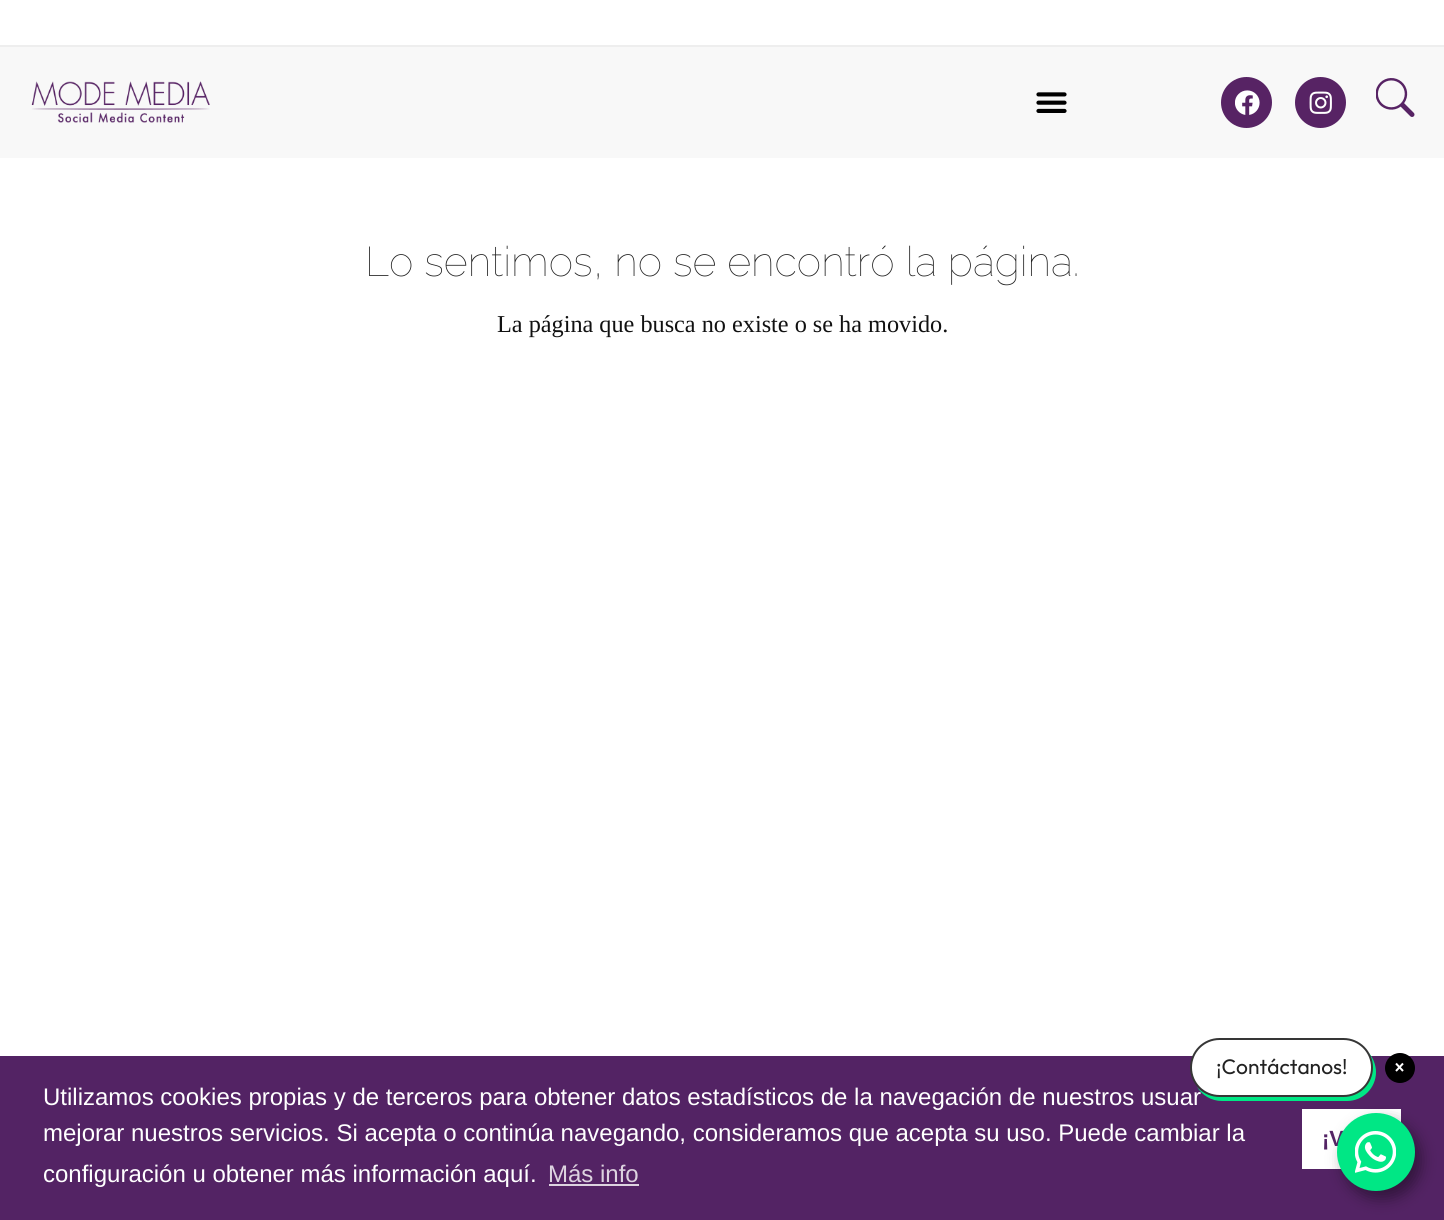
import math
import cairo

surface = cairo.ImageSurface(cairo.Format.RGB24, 1444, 1220)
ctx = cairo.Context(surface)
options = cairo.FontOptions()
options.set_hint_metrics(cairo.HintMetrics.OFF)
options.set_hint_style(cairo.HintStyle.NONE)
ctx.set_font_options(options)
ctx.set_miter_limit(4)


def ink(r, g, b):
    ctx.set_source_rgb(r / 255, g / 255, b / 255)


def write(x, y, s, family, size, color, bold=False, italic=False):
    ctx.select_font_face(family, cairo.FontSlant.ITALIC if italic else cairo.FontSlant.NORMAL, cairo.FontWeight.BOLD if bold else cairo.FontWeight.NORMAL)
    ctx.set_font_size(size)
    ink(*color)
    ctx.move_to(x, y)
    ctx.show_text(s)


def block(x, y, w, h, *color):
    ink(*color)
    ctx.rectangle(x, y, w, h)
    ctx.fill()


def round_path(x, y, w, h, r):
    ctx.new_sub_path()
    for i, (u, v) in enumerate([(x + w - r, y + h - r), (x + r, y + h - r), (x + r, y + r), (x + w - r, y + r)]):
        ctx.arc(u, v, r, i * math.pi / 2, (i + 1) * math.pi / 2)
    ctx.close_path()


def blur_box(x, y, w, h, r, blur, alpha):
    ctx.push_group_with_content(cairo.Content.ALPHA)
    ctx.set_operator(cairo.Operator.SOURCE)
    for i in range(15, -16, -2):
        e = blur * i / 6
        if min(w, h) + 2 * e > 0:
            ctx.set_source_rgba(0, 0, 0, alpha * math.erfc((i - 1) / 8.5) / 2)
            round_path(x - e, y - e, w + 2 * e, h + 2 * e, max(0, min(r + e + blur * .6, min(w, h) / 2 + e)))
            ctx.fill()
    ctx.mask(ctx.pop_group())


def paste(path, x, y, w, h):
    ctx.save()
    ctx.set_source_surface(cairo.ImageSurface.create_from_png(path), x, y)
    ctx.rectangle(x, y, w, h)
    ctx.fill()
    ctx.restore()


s1 = dict(family="Raleway Thin", size=41.5, color=(34, 34, 34))
s2 = dict(family="Liberation Serif", size=24.25, color=(17, 17, 17))
s3 = dict(family="Liberation Sans", size=24, color=(255, 255, 255))
s4 = dict(family="Outfit", size=21, color=(34, 34, 34))
s5 = dict(family="Liberation Sans", size=22, color=(83, 35, 100), bold=True)
s6 = dict(family="Liberation Sans", size=24, color=(221, 211, 224))

ink(255, 255, 255)
ctx.paint()
block(0, 45, 1444, 2, 238, 238, 238)
block(0, 47, 1444, 111, 248, 248, 248)
paste("pic1.png", 31, 81, 179, 42)
paste("pic2.png", 1036, 92, 31, 21)
ink(87, 35, 100)
ctx.arc(1246.5, 102.5, 25.5, 0, 2 * math.pi)
ctx.fill()
paste("pic3.png", 1235, 90, 25, 25)
ctx.arc(1320.5, 102.5, 25.5, 0, 2 * math.pi)
ctx.fill()
paste("pic4.png", 1309, 91, 23, 23)
paste("pic5.png", 1376, 78, 39, 39)
write(365, 276, "Lo sentimos, no se encontró la página.", **s1)
write(497, 332, "La página que busca no existe o se ha movido.", **s2)
block(0, 1056, 1444, 164, 83, 35, 100)
block(1302, 1109, 99, 60, 255, 255, 255)
ink(0, 0, 0)
blur_box(1343, 1121, 78, 78, 39, 7.5, 0.4)
write(43, 1105, "Utilizamos cookies propias y de terceros para obtener datos estadísticos de la navegación de nuestros usuar", **s3)
ink(0, 231, 133)
ctx.new_path()
ctx.move_to(1197, 1087)
ctx.curve_to(1202, 1095, 1211, 1101, 1222, 1101)
ctx.line_to(1347, 1101)
ctx.curve_to(1363, 1101, 1376, 1088, 1376, 1072)
ctx.curve_to(1376, 1065, 1373, 1058, 1369, 1053)
ctx.curve_to(1371, 1057, 1372, 1062, 1372, 1067)
ctx.curve_to(1372, 1083, 1359, 1096, 1343, 1096)
ctx.line_to(1219, 1096)
ctx.curve_to(1210, 1096, 1203, 1093, 1197, 1087)
ctx.close_path()
ctx.fill()
ink(255, 255, 255)
round_path(1191, 1039, 181, 57, 28.5)
ctx.fill_preserve()
ink(54, 54, 54)
ctx.stroke()
write(1216, 1074, "¡Contáctanos!", **s4)
ink(0, 0, 0)
ctx.new_path()
ctx.arc(1400, 1068, 15, 0, 2 * math.pi)
ctx.fill()
ctx.new_path()
ctx.move_to(1396, 1063.5)
ctx.line_to(1403, 1071)
ctx.move_to(1396, 1071)
ctx.line_to(1403, 1063.5)
ink(255, 255, 255)
ctx.stroke()
write(1322, 1146, "¡V", **s5)
ink(0, 231, 133)
ctx.new_path()
ctx.arc(1376, 1152, 39, 0, 2 * math.pi)
ctx.fill()
paste("pic6.png", 1355, 1131, 41, 42)
write(43, 1141, "mejorar nuestros servicios. Si acepta o continúa navegando, consideramos que acepta su uso. Puede cambiar la", **s3)
write(43, 1182, "configuración u obtener más información aquí.", **s3)
write(548, 1182, "Más info", **s6)
block(549, 1184, 90, 2, 221, 211, 224)
surface.write_to_png("screenshot.png")
